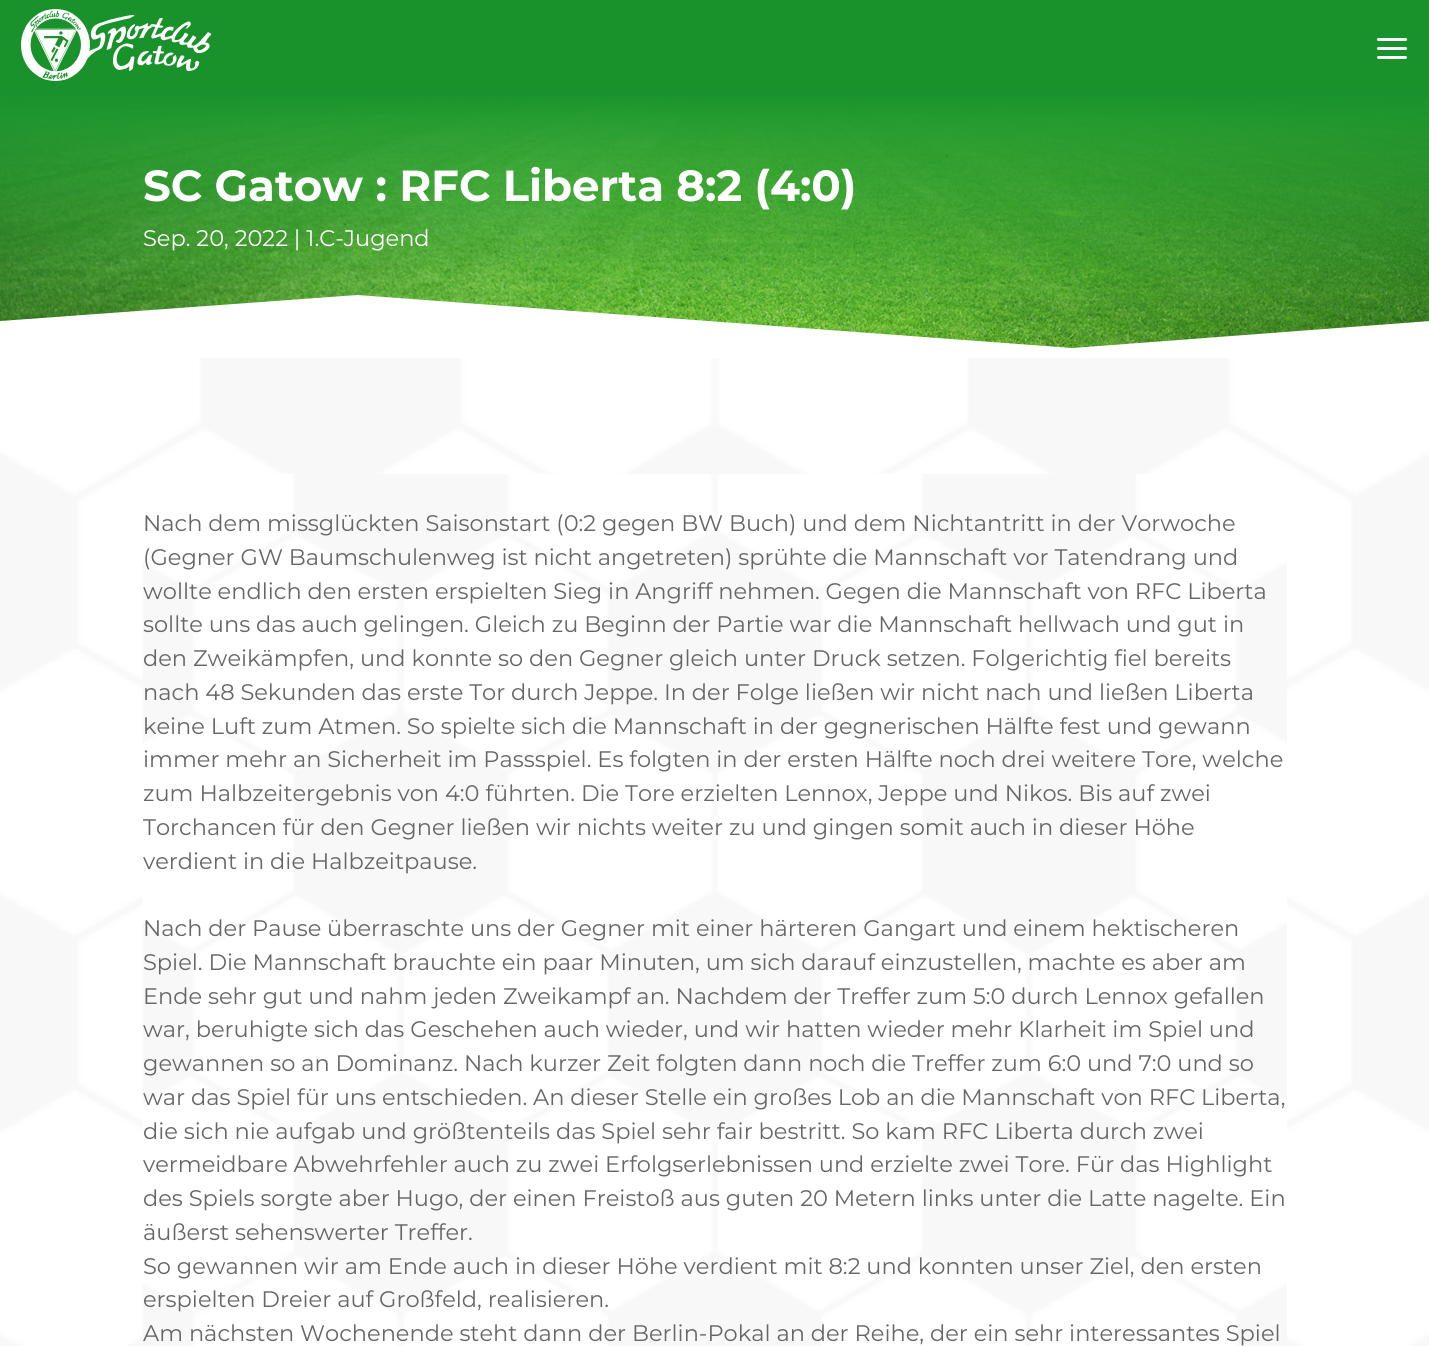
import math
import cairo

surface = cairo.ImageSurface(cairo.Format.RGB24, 1429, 1346)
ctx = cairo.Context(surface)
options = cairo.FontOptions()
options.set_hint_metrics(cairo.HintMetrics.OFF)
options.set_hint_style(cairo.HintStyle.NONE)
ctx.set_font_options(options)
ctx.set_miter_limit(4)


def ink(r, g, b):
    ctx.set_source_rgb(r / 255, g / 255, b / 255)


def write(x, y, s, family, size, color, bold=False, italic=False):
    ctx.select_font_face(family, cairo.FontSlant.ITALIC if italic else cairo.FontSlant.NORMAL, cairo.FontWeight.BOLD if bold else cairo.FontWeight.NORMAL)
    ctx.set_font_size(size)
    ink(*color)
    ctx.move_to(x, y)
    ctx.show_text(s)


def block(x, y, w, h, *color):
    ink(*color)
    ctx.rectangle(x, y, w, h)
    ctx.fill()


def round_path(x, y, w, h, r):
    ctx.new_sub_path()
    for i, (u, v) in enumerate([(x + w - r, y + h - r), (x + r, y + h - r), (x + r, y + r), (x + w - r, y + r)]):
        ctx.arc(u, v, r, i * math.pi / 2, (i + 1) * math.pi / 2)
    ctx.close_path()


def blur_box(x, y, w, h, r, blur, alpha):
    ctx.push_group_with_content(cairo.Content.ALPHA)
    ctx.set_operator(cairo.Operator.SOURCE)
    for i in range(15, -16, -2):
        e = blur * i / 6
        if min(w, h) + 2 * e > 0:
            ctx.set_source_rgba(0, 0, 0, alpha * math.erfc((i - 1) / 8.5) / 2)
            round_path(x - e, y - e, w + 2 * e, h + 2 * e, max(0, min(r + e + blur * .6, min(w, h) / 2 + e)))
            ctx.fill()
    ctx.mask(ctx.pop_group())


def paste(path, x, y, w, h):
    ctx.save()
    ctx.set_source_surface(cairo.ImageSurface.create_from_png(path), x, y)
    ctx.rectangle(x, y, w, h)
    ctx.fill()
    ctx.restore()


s1 = dict(family="Montserrat", size=43.5, color=(255, 255, 255), bold=True)
s2 = dict(family="Montserrat", size=22.5, color=(255, 255, 255))
s3 = dict(family="Montserrat", size=22.5, color=(102, 102, 102))

ink(255, 255, 255)
ctx.paint()
paste("pic2.png", 0, 90, 1429, 258)
ink(0, 0, 0)
blur_box(0, 3, 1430, 90, 0, 19, 0.1)
block(0, 0, 1429, 90, 26, 146, 44)
paste("pic1.png", 21, 9, 191, 72)
ink(255, 255, 255)
round_path(1377, 56, 30, 3, 1.5)
ctx.fill()
round_path(1377, 38, 30, 3, 1.5)
ctx.fill()
round_path(1377, 47, 30, 3, 1.5)
ctx.fill()
write(143, 201, "SC Gatow : RFC Liberta 8:2 (4:0)", **s1)
write(143, 246, "Sep. 20, 2022 | 1.C-Jugend", **s2)
ctx.new_path()
ctx.move_to(0, 321)
ctx.line_to(357, 295)
ctx.line_to(1072, 348)
ctx.line_to(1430, 321)
ctx.line_to(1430, 358)
ctx.line_to(0, 358)
ctx.close_path()
ctx.fill()
paste("pic3.png", 0, 358, 1429, 988)
paste("pic4.png", 142, 474, 1145, 872)
write(143, 531, "Nach dem missglückten Saisonstart (0:2 gegen BW Buch) und dem Nichtantritt in der Vorwoche", **s3)
write(143, 565, "(Gegner GW Baumschulenweg ist nicht angetreten) sprühte die Mannschaft vor Tatendrang und", **s3)
write(143, 599, "wollte endlich den ersten erspielten Sieg in Angriff nehmen. Gegen die Mannschaft von RFC Liberta", **s3)
write(143, 632, "sollte uns das auch gelingen. Gleich zu Beginn der Partie war die Mannschaft hellwach und gut in", **s3)
write(143, 666, "den Zweikämpfen, und konnte so den Gegner gleich unter Druck setzen. Folgerichtig fiel bereits", **s3)
write(143, 700, "nach 48 Sekunden das erste Tor durch Jeppe. In der Folge ließen wir nicht nach und ließen Liberta", **s3)
write(143, 734, "keine Luft zum Atmen. So spielte sich die Mannschaft in der gegnerischen Hälfte fest und gewann", **s3)
write(143, 767, "immer mehr an Sicherheit im Passspiel. Es folgten in der ersten Hälfte noch drei weitere Tore, welche", **s3)
write(143, 801, "zum Halbzeitergebnis von 4:0 führten. Die Tore erzielten Lennox, Jeppe und Nikos. Bis auf zwei", **s3)
write(143, 835, "Torchancen für den Gegner ließen wir nichts weiter zu und gingen somit auch in dieser Höhe", **s3)
write(143, 869, "verdient in die Halbzeitpause.", **s3)
write(143, 936, "Nach der Pause überraschte uns der Gegner mit einer härteren Gangart und einem hektischeren", **s3)
write(143, 970, "Spiel. Die Mannschaft brauchte ein paar Minuten, um sich darauf einzustellen, machte es aber am", **s3)
write(143, 1004, "Ende sehr gut und nahm jeden Zweikampf an. Nachdem der Treffer zum 5:0 durch Lennox gefallen", **s3)
write(143, 1037, "war, beruhigte sich das Geschehen auch wieder, und wir hatten wieder mehr Klarheit im Spiel und", **s3)
write(143, 1071, "gewannen so an Dominanz. Nach kurzer Zeit folgten dann noch die Treffer zum 6:0 und 7:0 und so", **s3)
write(143, 1105, "war das Spiel für uns entschieden. An dieser Stelle ein großes Lob an die Mannschaft von RFC Liberta,", **s3)
write(143, 1139, "die sich nie aufgab und größtenteils das Spiel sehr fair bestritt. So kam RFC Liberta durch zwei", **s3)
write(143, 1172, "vermeidbare Abwehrfehler auch zu zwei Erfolgserlebnissen und erzielte zwei Tore. Für das Highlight", **s3)
write(143, 1206, "des Spiels sorgte aber Hugo, der einen Freistoß aus guten 20 Metern links unter die Latte nagelte. Ein", **s3)
write(143, 1240, "äußerst sehenswerter Treffer.", **s3)
write(143, 1274, "So gewannen wir am Ende auch in dieser Höhe verdient mit 8:2 und konnten unser Ziel, den ersten", **s3)
write(143, 1307, "erspielten Dreier auf Großfeld, realisieren.", **s3)
write(143, 1341, "Am nächsten Wochenende steht dann der Berlin-Pokal an der Reihe, der ein sehr interessantes Spiel", **s3)
surface.write_to_png("screenshot.png")
